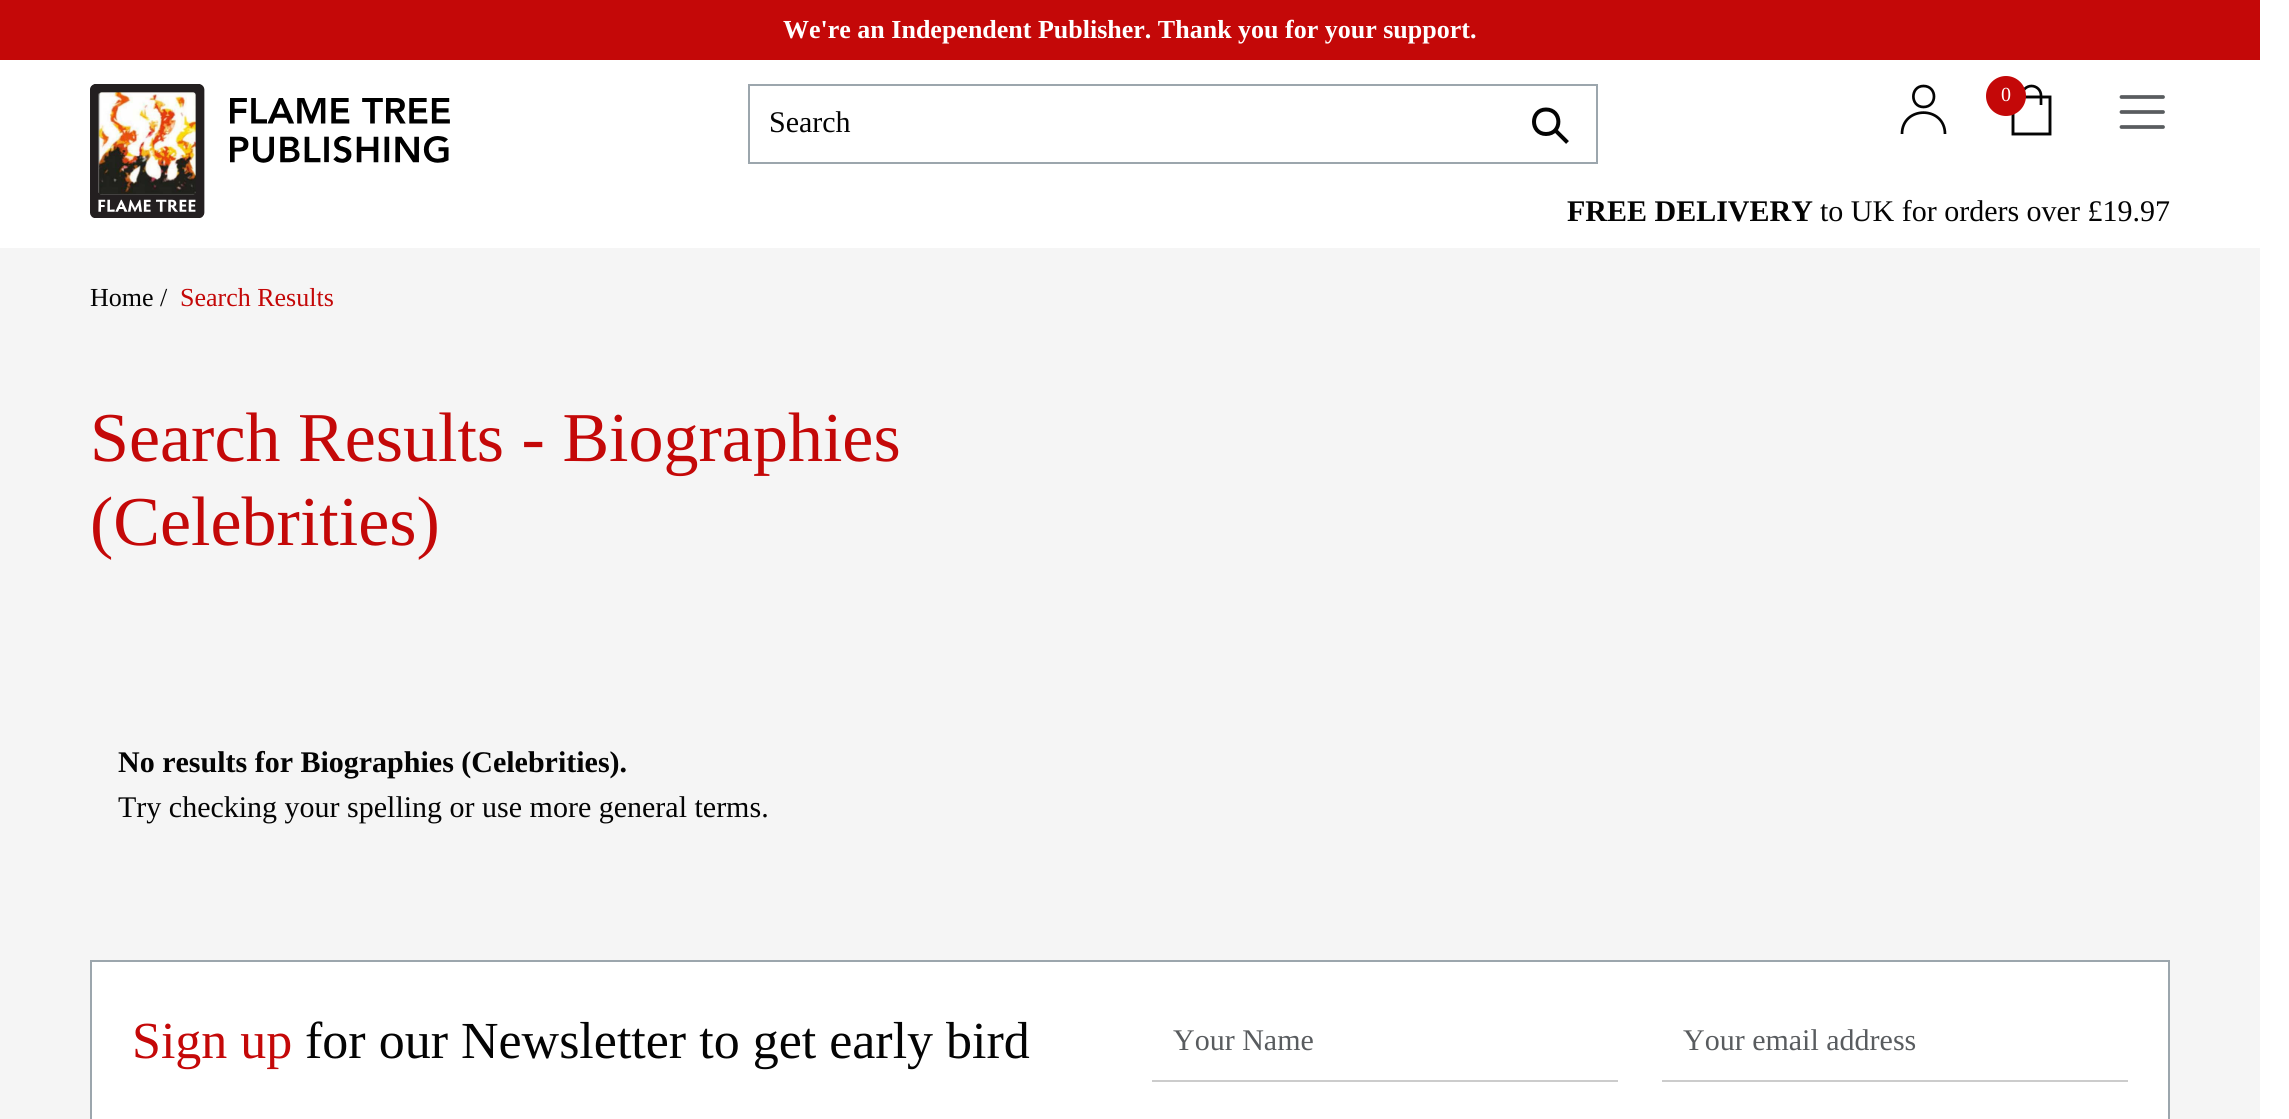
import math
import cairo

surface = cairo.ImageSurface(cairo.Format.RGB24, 2289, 1119)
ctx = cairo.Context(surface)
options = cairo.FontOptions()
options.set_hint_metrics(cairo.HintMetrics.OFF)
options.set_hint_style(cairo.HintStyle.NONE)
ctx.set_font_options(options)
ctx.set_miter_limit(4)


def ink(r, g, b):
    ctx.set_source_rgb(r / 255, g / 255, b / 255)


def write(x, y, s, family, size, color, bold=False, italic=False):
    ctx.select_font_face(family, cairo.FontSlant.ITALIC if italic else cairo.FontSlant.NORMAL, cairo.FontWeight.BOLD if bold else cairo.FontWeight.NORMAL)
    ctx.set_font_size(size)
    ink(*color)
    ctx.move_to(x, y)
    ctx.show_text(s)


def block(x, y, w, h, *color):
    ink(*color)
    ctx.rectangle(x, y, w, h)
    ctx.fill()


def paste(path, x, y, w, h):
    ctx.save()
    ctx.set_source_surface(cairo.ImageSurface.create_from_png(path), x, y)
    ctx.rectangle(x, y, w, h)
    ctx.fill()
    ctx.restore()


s1 = dict(family="Liberation Serif", size=26, color=(255, 255, 255), bold=True)
s2 = dict(family="Liberation Serif", size=20, color=(255, 255, 255))
s3 = dict(family="Liberation Serif", size=30, color=(4, 4, 4))
s4 = dict(family="Liberation Serif", size=30, color=(4, 4, 4), bold=True)
s5 = dict(family="Liberation Serif", size=26, color=(4, 4, 4))
s6 = dict(family="Liberation Serif", size=26, color=(196, 8, 8))
s7 = dict(family="Liberation Serif", size=70, color=(196, 8, 8))
s8 = dict(family="Liberation Serif", size=52, color=(196, 8, 8))
s9 = dict(family="Liberation Serif", size=52, color=(4, 4, 4))
s10 = dict(family="Liberation Serif", size=30, color=(89, 92, 95))

ink(245, 245, 245)
ctx.paint()
block(0, 0, 2260, 60, 196, 8, 8)
write(783, 38, "We're an Independent Publisher. Thank you for your support.", **s1)
block(0, 60, 2260, 188, 255, 255, 255)
paste("pic1.png", 90, 84, 115, 134)
paste("pic2.png", 230, 98, 220, 65)
ctx.new_path()
ctx.move_to(1923.5, 107)
ctx.curve_to(1937.5, 107, 1937.5, 86, 1923.5, 86)
ctx.curve_to(1910, 86, 1910, 107, 1923.5, 107)
ctx.close_path()
ctx.move_to(1902, 134)
ctx.curve_to(1902, 105.5, 1945, 105.5, 1945, 134)
ink(4, 4, 4)
ctx.set_line_width(2.7)
ctx.stroke()
ctx.new_path()
ctx.move_to(2022, 105)
ctx.line_to(2022, 95.5)
ctx.curve_to(2022, 90, 2026.5, 86, 2031.5, 86)
ctx.curve_to(2036.5, 86, 2041, 90, 2041, 95.5)
ctx.line_to(2041, 105)
ctx.stroke()
ctx.new_path()
ctx.move_to(2050, 97)
ctx.line_to(2013, 97)
ctx.line_to(2013, 134)
ctx.line_to(2050, 134)
ctx.close_path()
ctx.set_line_width(2.9)
ctx.stroke()
ink(196, 8, 8)
ctx.arc(2006, 96, 20, 0, 2 * math.pi)
ctx.fill()
write(2001, 101, "0", **s2)
block(2260, 0, 29, 1119, 255, 255, 255)
ctx.new_path()
ctx.move_to(2121.5, 97)
ctx.line_to(2163, 97)
ctx.move_to(2121.5, 112)
ctx.line_to(2163, 112)
ctx.move_to(2121.5, 127)
ctx.line_to(2163, 127)
ink(89, 92, 95)
ctx.set_line_width(3.8)
ctx.set_line_cap(cairo.LineCap.ROUND)
ctx.stroke()
ctx.rectangle(749, 85, 848, 78)
ink(156, 166, 173)
ctx.set_line_width(2)
ctx.set_line_cap(cairo.LineCap.BUTT)
ctx.stroke()
write(769, 132, "Search", **s3)
ctx.new_path()
ctx.move_to(1546, 134)
ctx.curve_to(1562.5, 134, 1562.5, 109.5, 1546, 109.5)
ctx.curve_to(1530, 109.5, 1530, 134, 1546, 134)
ctx.close_path()
ctx.move_to(1567.5, 142.5)
ctx.line_to(1555, 130)
ctx.set_line_width(4)
ctx.stroke()
write(1567, 221, "FREE DELIVERY", **s4)
write(1820, 221, "to UK for orders over £19.97", **s3)
write(90, 306, "Home /", **s5)
write(180, 306, "Search Results", **s6)
write(90, 461, "Search Results - Biographies", **s7)
write(90, 545, "(Celebrities)", **s7)
write(118, 772, "No results for Biographies (Celebrities).", **s4)
write(118, 817, "Try checking your spelling or use more general terms.", **s3)
ink(255, 255, 255)
ctx.rectangle(91, 961, 2078, 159)
ctx.fill_preserve()
ink(156, 166, 173)
ctx.set_line_width(2)
ctx.stroke()
write(132, 1058, "Sign up", **s8)
write(305, 1058, "for our Newsletter to get early bird", **s9)
block(1152, 1080, 466, 2, 204, 204, 204)
write(1173, 1050, "Your Name", **s10)
block(1662, 1080, 466, 2, 204, 204, 204)
write(1683, 1050, "Your email address", **s10)
surface.write_to_png("screenshot.png")
